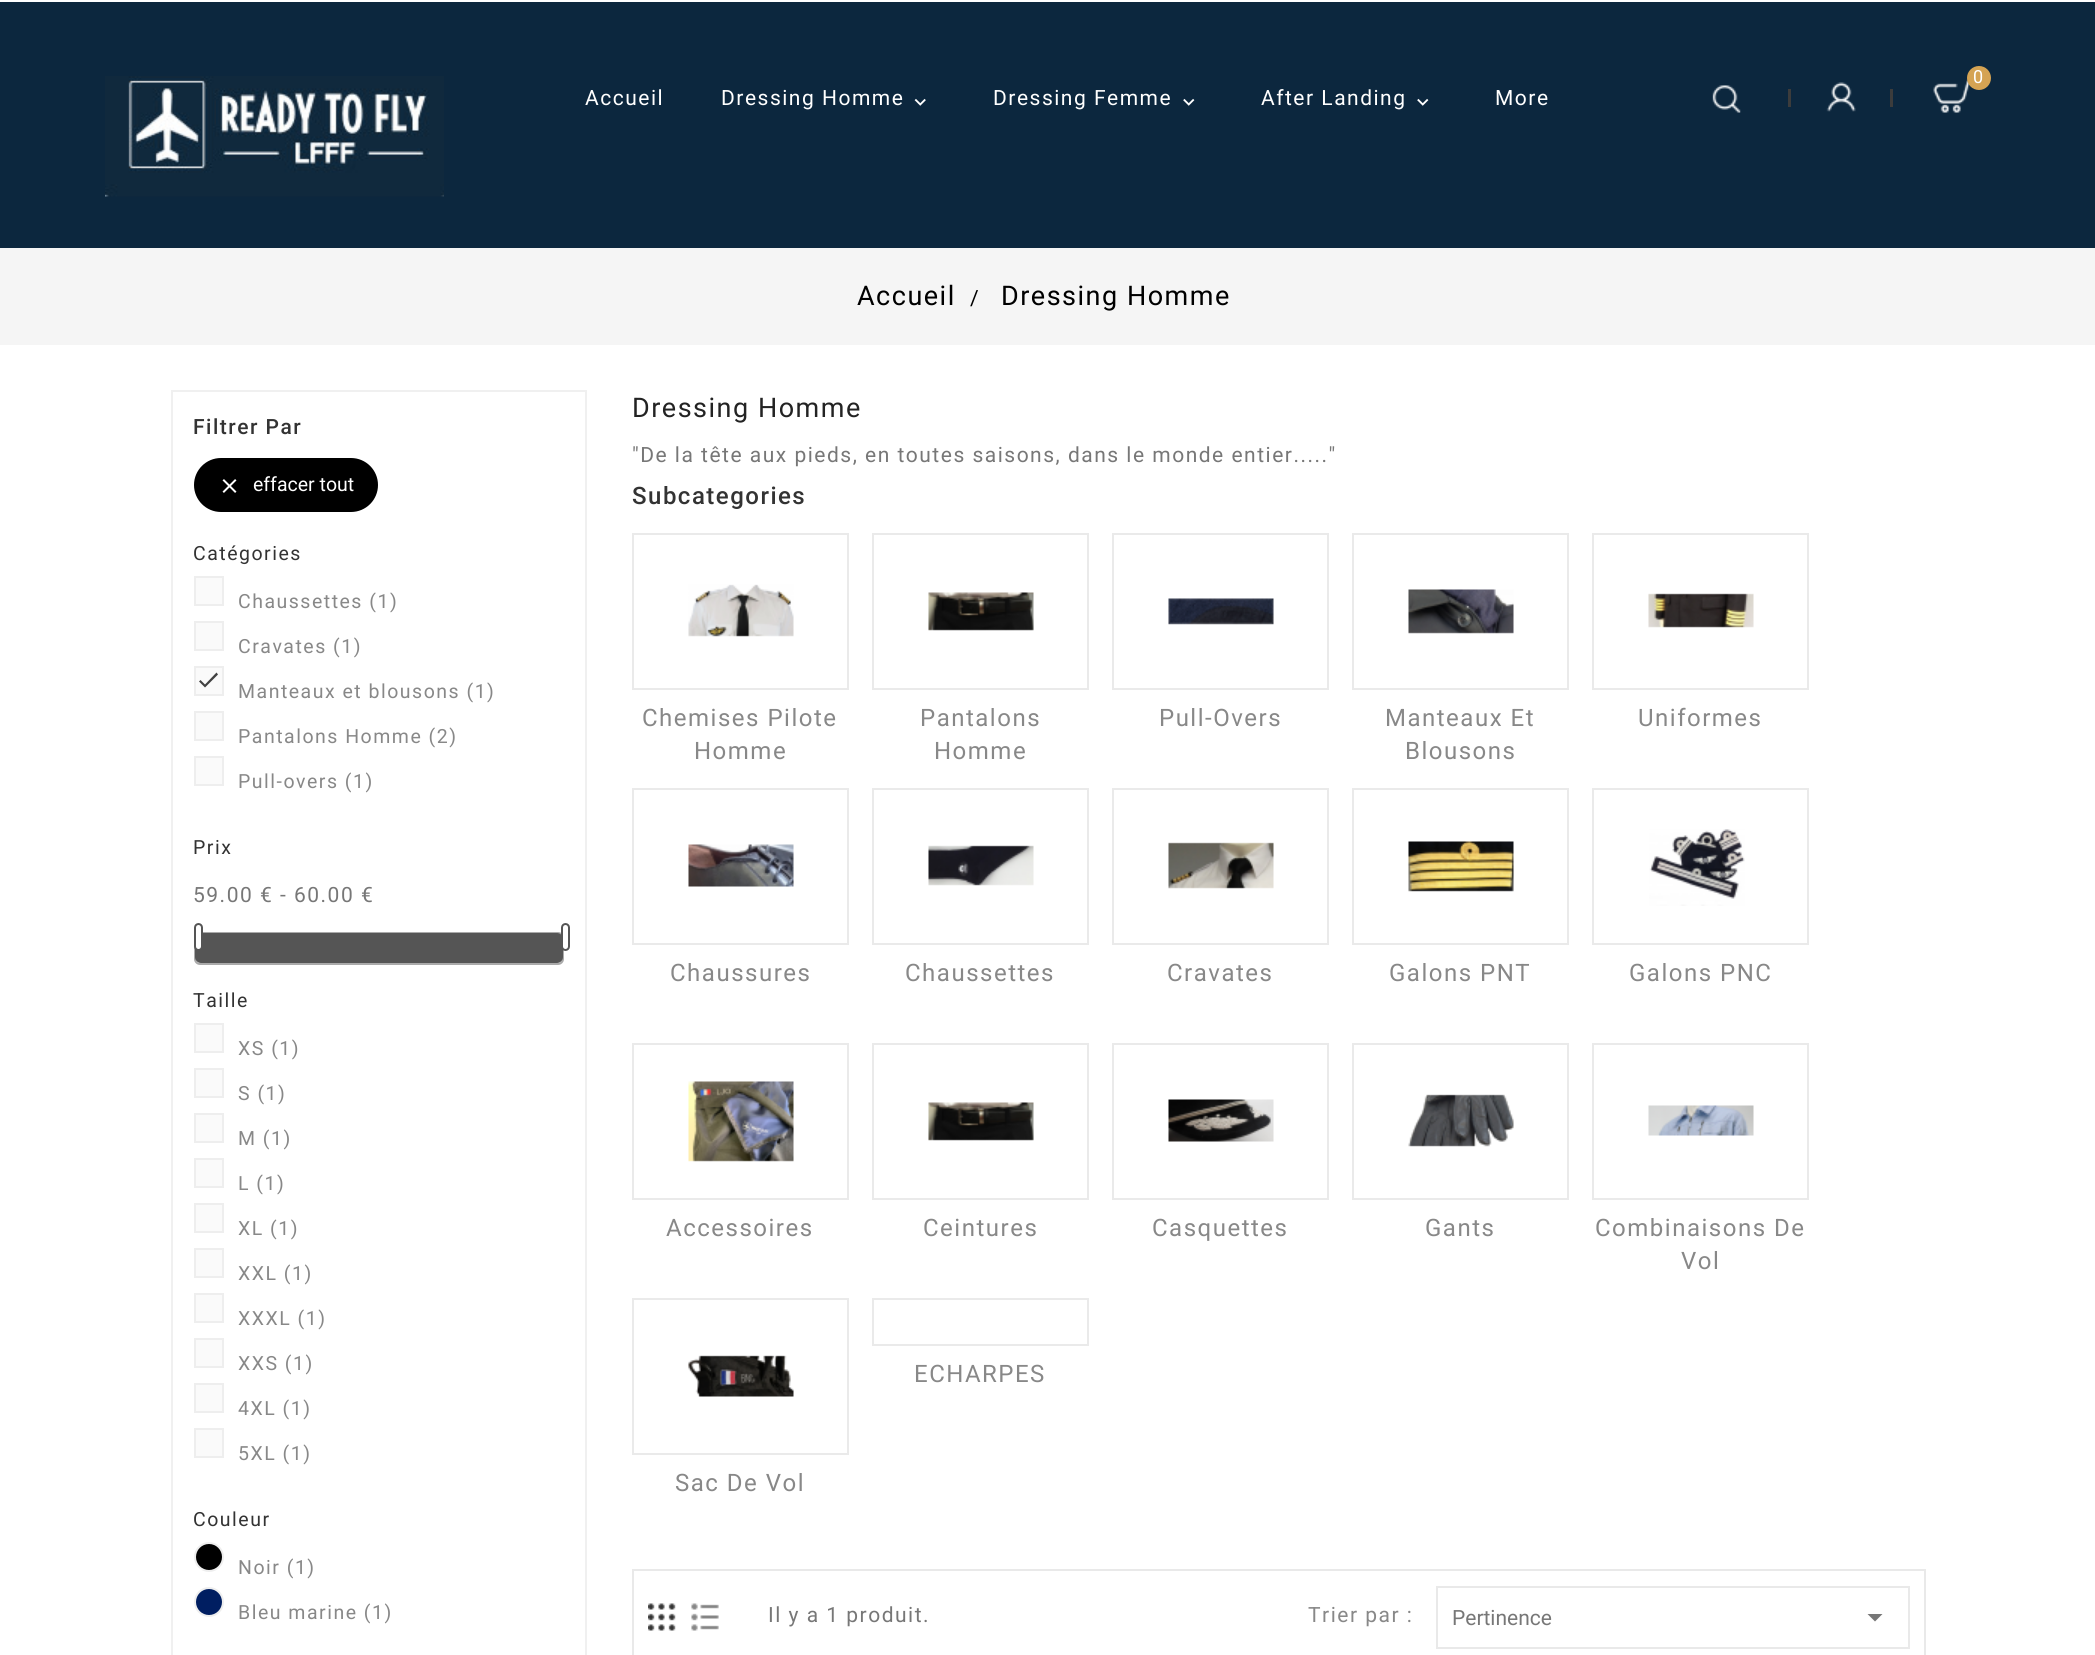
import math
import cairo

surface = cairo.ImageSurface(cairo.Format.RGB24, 2095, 1655)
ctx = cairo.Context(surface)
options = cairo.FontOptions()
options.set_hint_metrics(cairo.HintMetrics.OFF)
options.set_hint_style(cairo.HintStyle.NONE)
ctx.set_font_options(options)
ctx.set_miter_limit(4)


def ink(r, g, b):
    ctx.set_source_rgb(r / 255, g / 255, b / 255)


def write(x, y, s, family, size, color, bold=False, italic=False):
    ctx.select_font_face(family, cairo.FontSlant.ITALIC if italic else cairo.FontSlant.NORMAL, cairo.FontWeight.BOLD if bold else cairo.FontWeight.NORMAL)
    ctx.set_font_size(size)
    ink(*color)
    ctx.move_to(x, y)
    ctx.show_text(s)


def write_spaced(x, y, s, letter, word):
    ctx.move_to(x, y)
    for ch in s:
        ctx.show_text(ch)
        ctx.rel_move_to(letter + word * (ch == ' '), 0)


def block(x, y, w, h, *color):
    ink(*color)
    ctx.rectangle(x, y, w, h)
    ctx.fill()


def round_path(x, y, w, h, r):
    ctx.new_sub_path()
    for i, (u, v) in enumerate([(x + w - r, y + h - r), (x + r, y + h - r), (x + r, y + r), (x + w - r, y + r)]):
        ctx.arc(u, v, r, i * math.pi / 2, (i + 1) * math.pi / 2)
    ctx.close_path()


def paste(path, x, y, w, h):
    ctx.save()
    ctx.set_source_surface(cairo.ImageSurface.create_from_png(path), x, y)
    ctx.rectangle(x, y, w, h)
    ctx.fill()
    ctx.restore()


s1 = dict(family="Roboto", size=19.5, color=(255, 255, 255))
s2 = dict(family="Roboto", size=21, color=(119, 119, 119))

ink(255, 255, 255)
ctx.paint()
block(0, 2, 2095, 246, 12, 39, 62)
paste("pic1.png", 105, 76, 339, 121)
ctx.select_font_face("Roboto")
ctx.set_font_size(21)
ink(255, 255, 255)
write_spaced(585, 105, "Accueil", 1.5, 0)
write_spaced(721, 105, "Dressing Homme", 1.5, 0)
paste("pic2.png", 914, 98, 12, 8)
write_spaced(993, 105, "Dressing Femme", 1.5, 0)
paste("pic3.png", 1183, 98, 12, 8)
write_spaced(1261, 105, "After Landing", 1.5, 0)
paste("pic3.png", 1417, 98, 12, 8)
write_spaced(1495, 105, "More", 1.5, 0)
paste("pic4.png", 1933, 79, 37, 34)
ink(213, 163, 83)
ctx.arc(1979, 78, 12, 0, 2 * math.pi)
ctx.fill()
ctx.set_font_size(18)
ink(255, 255, 255)
write_spaced(1973, 83, "0", 1.5, 0)
paste("pic5.png", 1712, 85, 29, 28)
block(1788, 89, 3, 18, 60, 60, 60)
paste("pic6.png", 1826, 82, 30, 30)
block(1890, 89, 3, 18, 60, 60, 60)
block(0, 248, 2095, 97, 245, 245, 245)
ctx.set_font_size(27)
ink(0, 0, 0)
write_spaced(857, 305, "Accueil", 1.5, 0)
ctx.set_font_size(21)
write_spaced(970, 305, "/", 1.5, 0)
ctx.set_font_size(27)
write_spaced(1001, 305, "Dressing Homme", 1.5, 0)
ctx.rectangle(172, 391, 414, 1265)
ink(240, 240, 240)
ctx.stroke()
ctx.select_font_face("Roboto Medium")
ctx.set_font_size(21)
ink(51, 51, 51)
write_spaced(193, 434, "Filtrer Par", 1.5, 0)
ink(0, 0, 0)
round_path(194, 458, 184, 54, 27)
ctx.fill()
paste("pic7.png", 222, 479, 15, 14)
write(253, 491, "effacer tout", **s1)
ink(51, 51, 51)
write_spaced(193, 560, "Catégories", 1.5, 0)
ink(250, 250, 250)
ctx.rectangle(195, 577, 28, 28)
ctx.fill_preserve()
ink(238, 238, 238)
ctx.stroke()
ink(136, 136, 136)
write_spaced(238, 608, "Chaussettes (1)", 1.5, 0)
ink(250, 250, 250)
ctx.rectangle(195, 622, 28, 28)
ctx.fill_preserve()
ink(238, 238, 238)
ctx.stroke()
ink(136, 136, 136)
write_spaced(238, 653, "Cravates (1)", 1.5, 0)
ink(250, 250, 250)
ctx.rectangle(195, 667, 28, 28)
ctx.fill_preserve()
ink(238, 238, 238)
ctx.stroke()
ink(65, 65, 65)
ctx.new_path()
ctx.move_to(205, 684.5)
ctx.line_to(216.5, 672.5)
ctx.line_to(218, 674.5)
ctx.line_to(205, 687.5)
ctx.line_to(199, 681.5)
ctx.line_to(200.5, 680)
ctx.close_path()
ctx.fill()
ink(136, 136, 136)
write_spaced(238, 698, "Manteaux et blousons (1)", 1.5, 0)
ink(250, 250, 250)
ctx.rectangle(195, 712, 28, 28)
ctx.fill_preserve()
ink(238, 238, 238)
ctx.stroke()
ink(136, 136, 136)
write_spaced(238, 743, "Pantalons Homme (2)", 1.5, 0)
ink(250, 250, 250)
ctx.rectangle(195, 757, 28, 28)
ctx.fill_preserve()
ink(238, 238, 238)
ctx.stroke()
ink(136, 136, 136)
write_spaced(238, 788, "Pull-overs (1)", 1.5, 0)
ink(51, 51, 51)
write_spaced(193, 854, "Prix", 1.5, 0)
ctx.set_font_size(21)
ink(119, 119, 119)
write_spaced(193, 902, "59.00 € - 60.00 €", 1.5, 0)
round_path(195, 933, 368, 31, 5)
ink(170, 170, 170)
ctx.stroke()
ink(85, 85, 85)
round_path(195, 933, 368, 30, 6)
ctx.fill()
ink(255, 255, 255)
round_path(195, 924, 7, 26, 3.5)
ctx.fill_preserve()
ink(85, 85, 85)
ctx.stroke()
ink(255, 255, 255)
round_path(562, 924, 7, 26, 3.5)
ctx.fill_preserve()
ink(85, 85, 85)
ctx.stroke()
ctx.set_font_size(19.5)
ink(51, 51, 51)
write_spaced(193, 1007, "Taille", 1.5, 0)
ink(250, 250, 250)
ctx.rectangle(195, 1024, 28, 28)
ctx.fill_preserve()
ink(238, 238, 238)
ctx.stroke()
ink(136, 136, 136)
write_spaced(238, 1055, "XS (1)", 1.5, 0)
ink(250, 250, 250)
ctx.rectangle(195, 1069, 28, 28)
ctx.fill_preserve()
ink(238, 238, 238)
ctx.stroke()
ink(136, 136, 136)
write_spaced(238, 1100, "S (1)", 1.5, 0)
ink(250, 250, 250)
ctx.rectangle(195, 1114, 28, 28)
ctx.fill_preserve()
ink(238, 238, 238)
ctx.stroke()
ink(136, 136, 136)
write_spaced(238, 1145, "M (1)", 1.5, 0)
ink(250, 250, 250)
ctx.rectangle(195, 1159, 28, 28)
ctx.fill_preserve()
ink(238, 238, 238)
ctx.stroke()
ink(136, 136, 136)
write_spaced(238, 1190, "L (1)", 1.5, 0)
ink(250, 250, 250)
ctx.rectangle(195, 1204, 28, 28)
ctx.fill_preserve()
ink(238, 238, 238)
ctx.stroke()
ink(136, 136, 136)
write_spaced(238, 1235, "XL (1)", 1.5, 0)
ink(250, 250, 250)
ctx.rectangle(195, 1249, 28, 28)
ctx.fill_preserve()
ink(238, 238, 238)
ctx.stroke()
ink(136, 136, 136)
write_spaced(238, 1280, "XXL (1)", 1.5, 0)
ink(250, 250, 250)
ctx.rectangle(195, 1294, 28, 28)
ctx.fill_preserve()
ink(238, 238, 238)
ctx.stroke()
ink(136, 136, 136)
write_spaced(238, 1325, "XXXL (1)", 1.5, 0)
ink(250, 250, 250)
ctx.rectangle(195, 1339, 28, 28)
ctx.fill_preserve()
ink(238, 238, 238)
ctx.stroke()
ink(136, 136, 136)
write_spaced(238, 1370, "XXS (1)", 1.5, 0)
ink(250, 250, 250)
ctx.rectangle(195, 1384, 28, 28)
ctx.fill_preserve()
ink(238, 238, 238)
ctx.stroke()
ink(136, 136, 136)
write_spaced(238, 1415, "4XL (1)", 1.5, 0)
ink(250, 250, 250)
ctx.rectangle(195, 1429, 28, 28)
ctx.fill_preserve()
ink(238, 238, 238)
ctx.stroke()
ink(136, 136, 136)
write_spaced(238, 1460, "5XL (1)", 1.5, 0)
ink(51, 51, 51)
write_spaced(193, 1526, "Couleur", 1.5, 0)
ink(0, 0, 0)
ctx.new_path()
ctx.arc(209, 1557, 14, 0, 2 * math.pi)
ctx.fill_preserve()
ink(238, 238, 238)
ctx.stroke()
ink(136, 136, 136)
write_spaced(238, 1574, "Noir (1)", 1.5, 0)
ink(0, 30, 97)
ctx.new_path()
ctx.arc(209, 1602, 14, 0, 2 * math.pi)
ctx.fill_preserve()
ink(238, 238, 238)
ctx.stroke()
ink(136, 136, 136)
write_spaced(238, 1619, "Bleu marine (1)", 1.5, 0)
ctx.set_font_size(27)
ink(35, 35, 35)
write_spaced(632, 417, "Dressing Homme", 1.5, 0)
ctx.set_font_size(21)
ink(119, 119, 119)
write_spaced(632, 462, "\"De la tête aux pieds, en toutes saisons, dans le monde entier.....\"", 1.5, 0)
ctx.select_font_face("Roboto Medium")
ctx.set_font_size(24)
ink(51, 51, 51)
write_spaced(632, 504, "Subcategories", 1.5, 0)
ctx.rectangle(633, 534, 215, 155)
ink(234, 234, 234)
ctx.stroke()
paste("pic8.png", 688, 584, 106, 53)
ctx.select_font_face("Roboto")
ink(136, 136, 136)
write_spaced(642, 726, "Chemises Pilote", 1.5, 0)
write_spaced(694, 759, "Homme", 1.5, 0)
ctx.rectangle(873, 534, 215, 155)
ink(234, 234, 234)
ctx.stroke()
paste("pic9.png", 928, 592, 106, 39)
ink(136, 136, 136)
write_spaced(920, 726, "Pantalons", 1.5, 0)
write_spaced(934, 759, "Homme", 1.5, 0)
ctx.rectangle(1113, 534, 215, 155)
ink(234, 234, 234)
ctx.stroke()
paste("pic10.png", 1168, 598, 106, 27)
ink(136, 136, 136)
write_spaced(1159, 726, "Pull-Overs", 1.5, 0)
ctx.rectangle(1353, 534, 215, 155)
ink(234, 234, 234)
ctx.stroke()
paste("pic11.png", 1408, 589, 106, 45)
ink(136, 136, 136)
write_spaced(1385, 726, "Manteaux Et", 1.5, 0)
write_spaced(1405, 759, "Blousons", 1.5, 0)
ctx.rectangle(1593, 534, 215, 155)
ink(234, 234, 234)
ctx.stroke()
paste("pic12.png", 1648, 593, 106, 35)
ink(136, 136, 136)
write_spaced(1638, 726, "Uniformes", 1.5, 0)
ctx.rectangle(633, 789, 215, 155)
ink(234, 234, 234)
ctx.stroke()
paste("pic13.png", 688, 844, 106, 43)
ink(136, 136, 136)
write_spaced(670, 981, "Chaussures", 1.5, 0)
ctx.rectangle(873, 789, 215, 155)
ink(234, 234, 234)
ctx.stroke()
paste("pic14.png", 928, 845, 106, 41)
ink(136, 136, 136)
write_spaced(905, 981, "Chaussettes", 1.5, 0)
ctx.rectangle(1113, 789, 215, 155)
ink(234, 234, 234)
ctx.stroke()
paste("pic15.png", 1168, 842, 106, 47)
ink(136, 136, 136)
write_spaced(1167, 981, "Cravates", 1.5, 0)
ctx.rectangle(1353, 789, 215, 155)
ink(234, 234, 234)
ctx.stroke()
paste("pic16.png", 1408, 841, 106, 51)
ink(136, 136, 136)
write_spaced(1389, 981, "Galons PNT", 1.5, 0)
ctx.rectangle(1593, 789, 215, 155)
ink(234, 234, 234)
ctx.stroke()
paste("pic17.png", 1649, 829, 96, 77)
ink(136, 136, 136)
write_spaced(1629, 981, "Galons PNC", 1.5, 0)
ctx.rectangle(633, 1044, 215, 155)
ink(234, 234, 234)
ctx.stroke()
paste("pic18.png", 688, 1081, 106, 81)
ink(136, 136, 136)
write_spaced(666, 1236, "Accessoires", 1.5, 0)
ctx.rectangle(873, 1044, 215, 155)
ink(234, 234, 234)
ctx.stroke()
paste("pic9.png", 928, 1102, 106, 39)
ink(136, 136, 136)
write_spaced(923, 1236, "Ceintures", 1.5, 0)
ctx.rectangle(1113, 1044, 215, 155)
ink(234, 234, 234)
ctx.stroke()
paste("pic19.png", 1168, 1099, 106, 43)
ink(136, 136, 136)
write_spaced(1152, 1236, "Casquettes", 1.5, 0)
ctx.rectangle(1353, 1044, 215, 155)
ink(234, 234, 234)
ctx.stroke()
paste("pic20.png", 1408, 1094, 106, 53)
ink(136, 136, 136)
write_spaced(1425, 1236, "Gants", 1.5, 0)
ctx.rectangle(1593, 1044, 215, 155)
ink(234, 234, 234)
ctx.stroke()
paste("pic21.png", 1648, 1105, 106, 31)
ink(136, 136, 136)
write_spaced(1595, 1236, "Combinaisons De", 1.5, 0)
write_spaced(1681, 1269, "Vol", 1.5, 0)
ctx.rectangle(873, 1299, 215, 46)
ink(234, 234, 234)
ctx.stroke()
ink(136, 136, 136)
write_spaced(914, 1382, "ECHARPES", 1.5, 0)
ctx.rectangle(633, 1299, 215, 155)
ink(234, 234, 234)
ctx.stroke()
paste("pic22.png", 688, 1355, 106, 42)
ink(136, 136, 136)
write_spaced(675, 1491, "Sac De Vol", 1.5, 0)
ctx.rectangle(633, 1570, 1292, 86)
ink(233, 233, 233)
ctx.stroke()
paste("pic23.png", 648, 1603, 28, 28)
paste("pic24.png", 691, 1603, 28, 28)
ctx.set_font_size(21)
ink(119, 119, 119)
write_spaced(768, 1622, "Il y a 1 produit.", 1.5, 0)
ink(136, 136, 136)
write_spaced(1308, 1622, "Trier par :", 1.5, 0)
ctx.rectangle(1437, 1587, 472, 61)
ink(233, 233, 233)
ctx.stroke()
write(1452, 1625, "Pertinence", **s2)
ctx.new_path()
ctx.move_to(1867.5, 1614)
ctx.line_to(1882.5, 1614)
ctx.line_to(1875, 1621.5)
ctx.close_path()
ctx.fill()
surface.write_to_png("screenshot.png")
